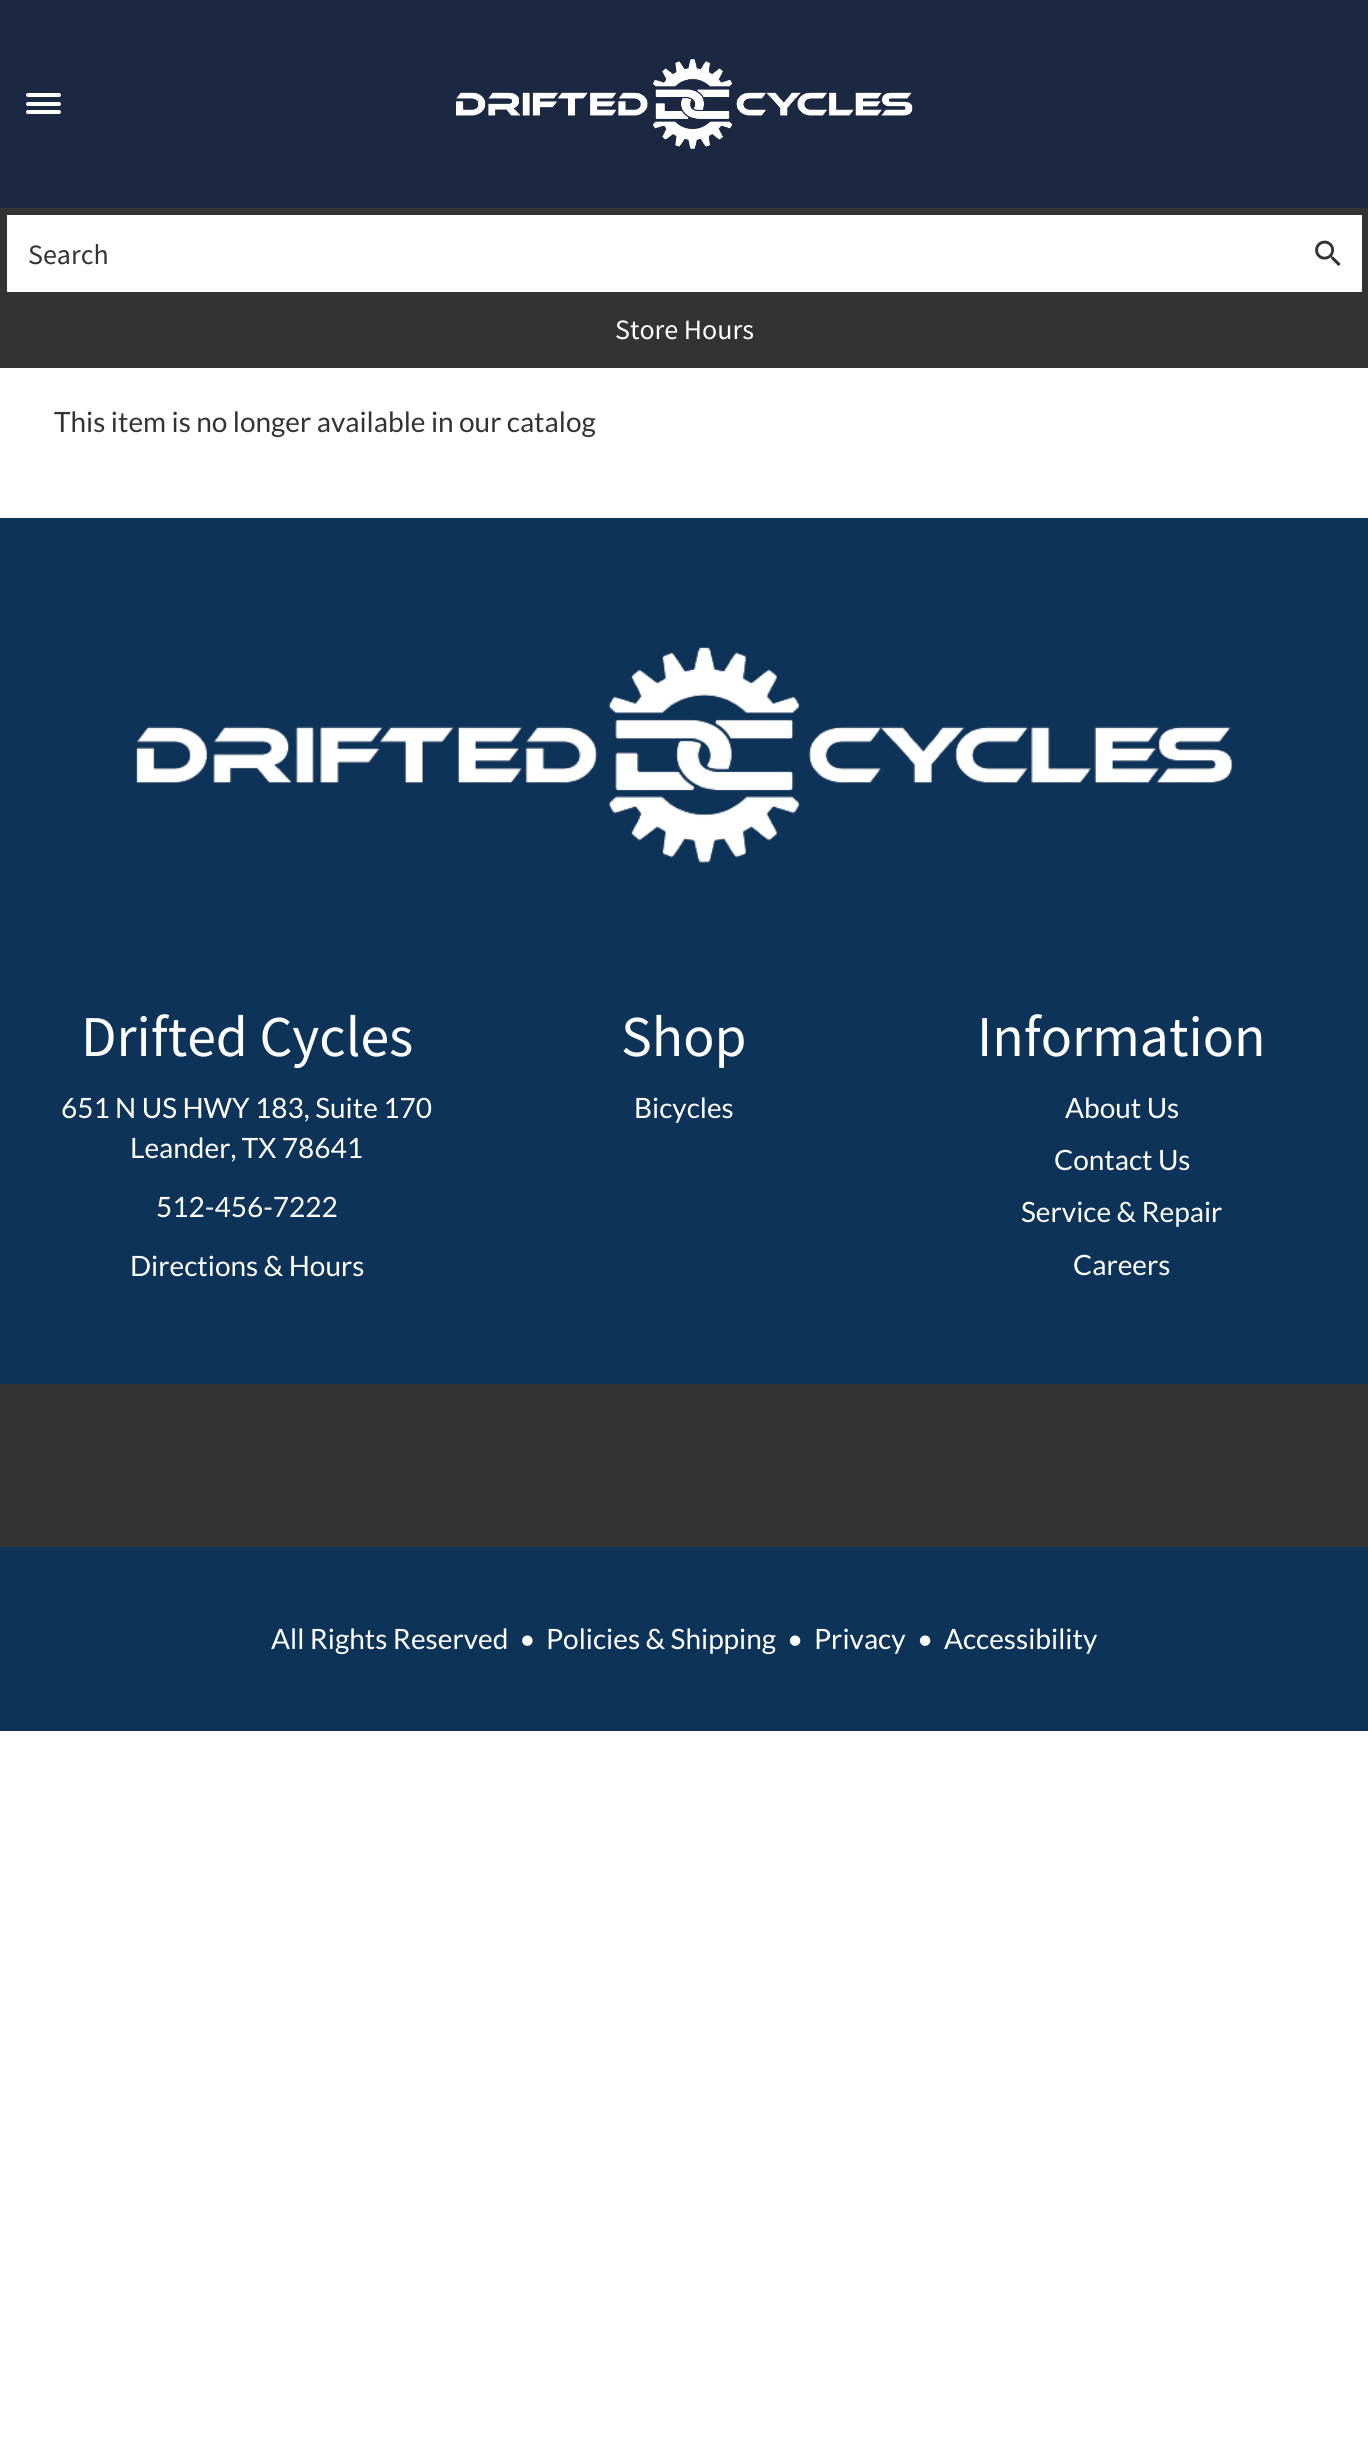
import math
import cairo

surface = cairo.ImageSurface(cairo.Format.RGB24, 1368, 2439)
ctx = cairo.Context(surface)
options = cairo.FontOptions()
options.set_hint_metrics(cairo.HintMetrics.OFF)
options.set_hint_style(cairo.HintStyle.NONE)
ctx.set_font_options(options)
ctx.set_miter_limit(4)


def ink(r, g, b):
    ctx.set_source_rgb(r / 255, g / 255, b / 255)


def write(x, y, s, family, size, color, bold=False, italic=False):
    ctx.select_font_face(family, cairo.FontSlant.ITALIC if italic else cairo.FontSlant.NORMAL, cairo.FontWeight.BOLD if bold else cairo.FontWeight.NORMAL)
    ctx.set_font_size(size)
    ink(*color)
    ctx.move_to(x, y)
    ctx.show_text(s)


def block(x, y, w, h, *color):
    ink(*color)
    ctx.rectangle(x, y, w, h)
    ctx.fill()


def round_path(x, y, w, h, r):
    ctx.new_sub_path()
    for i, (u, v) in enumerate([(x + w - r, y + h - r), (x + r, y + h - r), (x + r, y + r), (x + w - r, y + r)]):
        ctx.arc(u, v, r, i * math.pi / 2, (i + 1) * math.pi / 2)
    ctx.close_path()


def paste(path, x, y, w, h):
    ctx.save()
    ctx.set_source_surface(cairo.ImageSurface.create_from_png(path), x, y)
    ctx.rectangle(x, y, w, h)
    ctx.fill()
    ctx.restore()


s1 = dict(family="Source Sans Pro", size=28, color=(51, 51, 51))
s2 = dict(family="Source Sans Pro", size=28, color=(255, 255, 255))
s3 = dict(family="Lato", size=28, color=(51, 51, 51))
s4 = dict(family="Source Sans Pro", size=57.75, color=(255, 255, 255))
s5 = dict(family="Lato", size=28, color=(255, 255, 255))

ink(255, 255, 255)
ctx.paint()
block(0, 0, 1368, 208, 28, 40, 65)
ink(255, 255, 255)
round_path(26, 93, 35, 4, 2)
ctx.fill()
round_path(26, 102, 35, 4, 2)
ctx.fill()
round_path(26, 110, 35, 4, 2)
ctx.fill()
paste("pic1.png", 456, 59, 457, 90)
block(0, 208, 1368, 160, 51, 51, 51)
block(7, 215, 1355, 77, 255, 255, 255)
write(28, 264, "Search", **s1)
paste("pic2.png", 1315, 240, 26, 26)
write(615, 339, "Store Hours", **s2)
write(54, 432, "This item is no longer available in our catalog", **s3)
block(0, 518, 1368, 1213, 14, 51, 88)
paste("pic3.png", 136, 647, 1097, 216)
write(81, 1056, "Drifted Cycles", **s4)
write(61, 1118, "651 N US HWY 183, Suite 170", **s5)
write(130, 1158, "Leander, TX 78641", **s5)
write(156, 1217, "512-456-7222", **s5)
write(130, 1276, "Directions & Hours", **s5)
write(621, 1056, "Shop", **s4)
write(634, 1118, "Bicycles", **s5)
write(977, 1056, "Information", **s4)
write(1065, 1118, "About Us", **s5)
write(1054, 1170, "Contact Us", **s5)
write(1021, 1222, "Service & Repair", **s5)
write(1073, 1275, "Careers", **s5)
block(0, 1384, 1368, 163, 51, 51, 51)
write(271, 1649, "All Rights Reserved  •", **s5)
write(546, 1649, "Policies & Shipping", **s5)
write(787, 1649, "•", **s5)
write(814, 1649, "Privacy", **s5)
write(917, 1649, "•", **s5)
write(944, 1649, "Accessibility", **s5)
surface.write_to_png("screenshot.png")
